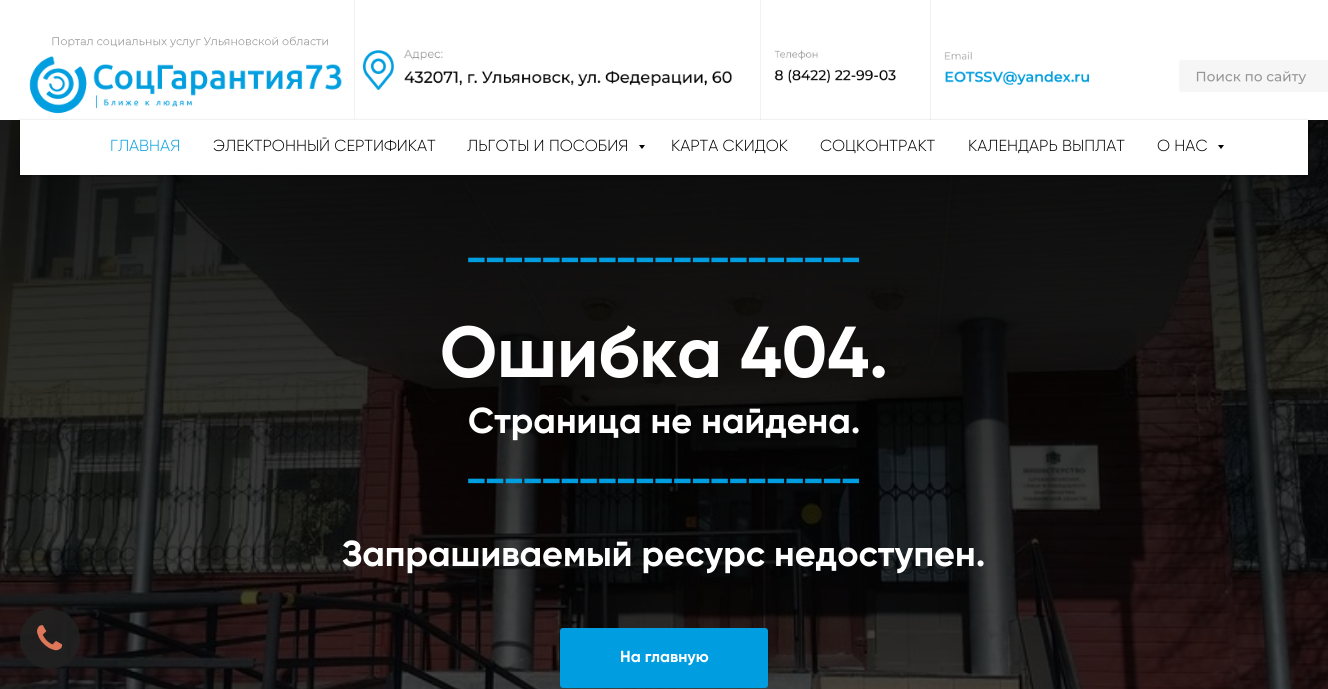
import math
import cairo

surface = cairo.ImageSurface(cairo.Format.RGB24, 1328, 689)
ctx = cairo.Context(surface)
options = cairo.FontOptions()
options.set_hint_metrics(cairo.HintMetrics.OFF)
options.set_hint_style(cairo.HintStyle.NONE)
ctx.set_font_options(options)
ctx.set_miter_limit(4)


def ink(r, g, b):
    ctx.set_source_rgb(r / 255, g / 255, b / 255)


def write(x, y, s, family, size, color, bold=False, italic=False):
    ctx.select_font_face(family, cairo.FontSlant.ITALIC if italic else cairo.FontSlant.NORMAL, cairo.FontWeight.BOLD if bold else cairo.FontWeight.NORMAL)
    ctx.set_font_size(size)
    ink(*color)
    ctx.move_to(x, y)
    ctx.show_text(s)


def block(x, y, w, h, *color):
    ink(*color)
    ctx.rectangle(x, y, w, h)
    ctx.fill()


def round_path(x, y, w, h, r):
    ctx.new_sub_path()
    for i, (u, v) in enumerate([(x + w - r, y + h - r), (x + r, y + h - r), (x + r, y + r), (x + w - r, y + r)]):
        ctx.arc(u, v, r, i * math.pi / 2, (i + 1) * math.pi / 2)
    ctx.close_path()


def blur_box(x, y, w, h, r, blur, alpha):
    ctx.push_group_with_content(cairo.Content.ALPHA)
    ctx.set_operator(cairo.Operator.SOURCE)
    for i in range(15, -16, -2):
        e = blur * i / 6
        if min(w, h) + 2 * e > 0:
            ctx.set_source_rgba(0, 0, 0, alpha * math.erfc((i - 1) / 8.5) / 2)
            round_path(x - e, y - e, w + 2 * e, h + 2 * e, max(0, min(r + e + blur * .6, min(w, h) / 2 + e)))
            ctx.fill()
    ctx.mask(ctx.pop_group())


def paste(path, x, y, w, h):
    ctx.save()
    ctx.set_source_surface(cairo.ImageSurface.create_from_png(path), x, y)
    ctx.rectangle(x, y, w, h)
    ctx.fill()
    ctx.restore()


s1 = dict(family="Gilroy Light", size=16, color=(0, 158, 224))
s2 = dict(family="Gilroy Light", size=16, color=(0, 0, 0))
s3 = dict(family="Gilroy", size=36, color=(0, 158, 224), bold=True)
s4 = dict(family="Gilroy", size=72, color=(255, 255, 255), bold=True)
s5 = dict(family="Gilroy", size=36, color=(255, 255, 255), bold=True)
s6 = dict(family="Gilroy", size=16, color=(255, 255, 255), bold=True)

ink(255, 255, 255)
ctx.paint()
paste("pic1.png", 52, 36, 276, 12)
block(354, 0, 1, 119, 242, 242, 242)
block(760, 0, 1, 120, 242, 242, 242)
block(930, 0, 1, 120, 242, 242, 242)
paste("pic2.png", 29, 56, 313, 58)
paste("pic3.png", 363, 50, 31, 40)
paste("pic4.png", 404, 50, 329, 36)
paste("pic5.png", 774, 50, 122, 34)
paste("pic6.png", 944, 51, 145, 34)
paste("pic7.png", 1179, 60, 149, 32)
paste("pic9.png", 0, 120, 1328, 569)
ink(0, 0, 0)
blur_box(20, 121, 1288, 55, 0, 1.5, 0.3)
block(20, 120, 1288, 55, 255, 255, 255)
write(110, 151, "ГЛАВНАЯ", **s1)
write(213, 151, "ЭЛЕКТРОННЫЙ СЕРТИФИКАТ", **s2)
write(467, 151, "ЛЬГОТЫ И ПОСОБИЯ", **s2)
ctx.new_path()
ctx.move_to(639, 145)
ctx.line_to(645, 145)
ctx.line_to(642, 149)
ctx.close_path()
ctx.fill()
write(671, 151, "КАРТА СКИДОК", **s2)
write(820, 151, "СОЦКОНТРАКТ", **s2)
write(968, 151, "КАЛЕНДАРЬ ВЫПЛАТ", **s2)
write(1157, 151, "О НАС", **s2)
ctx.new_path()
ctx.move_to(1218, 145)
ctx.line_to(1224, 145)
ctx.line_to(1221, 149)
ctx.close_path()
ctx.fill()
ctx.set_source_rgba(0.133, 0.133, 0.133, 0.85)
ctx.arc(50, 639, 30, 0, 2 * math.pi)
ctx.fill()
paste("pic8.png", 37, 625, 26, 26)
write(467, 256, "_____________________", **s3)
write(440, 377, "Ошибка 404.", **s4)
write(468, 433, "Страница не найдена.", **s5)
write(467, 477, "_____________________", **s3)
write(342, 566, "Запрашиваемый ресурс недоступен.", **s5)
ink(0, 158, 224)
round_path(560, 628, 208, 60, 3)
ctx.fill()
write(620, 662, "На главную", **s6)
surface.write_to_png("screenshot.png")
